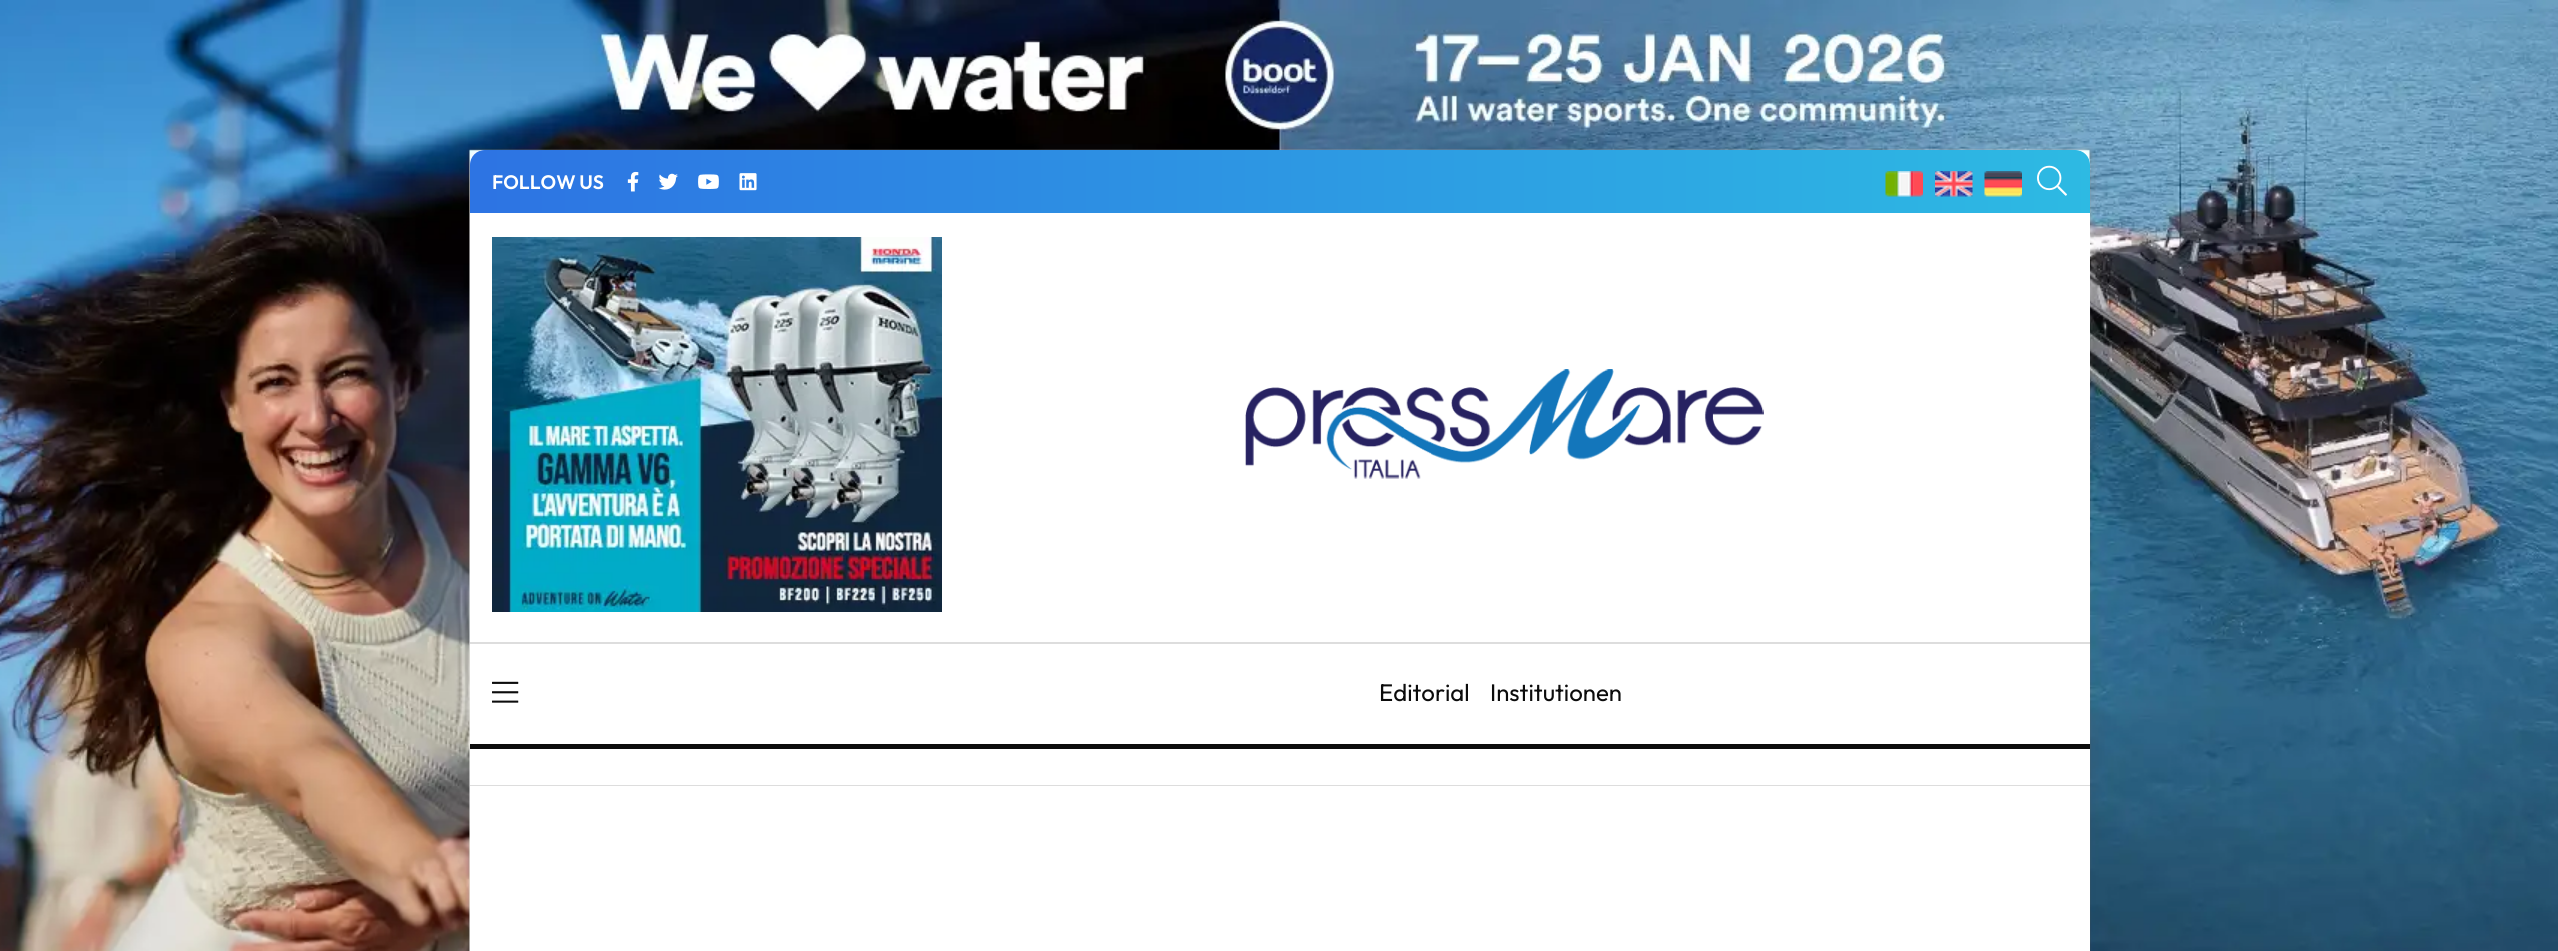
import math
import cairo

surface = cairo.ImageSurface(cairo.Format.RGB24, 2558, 951)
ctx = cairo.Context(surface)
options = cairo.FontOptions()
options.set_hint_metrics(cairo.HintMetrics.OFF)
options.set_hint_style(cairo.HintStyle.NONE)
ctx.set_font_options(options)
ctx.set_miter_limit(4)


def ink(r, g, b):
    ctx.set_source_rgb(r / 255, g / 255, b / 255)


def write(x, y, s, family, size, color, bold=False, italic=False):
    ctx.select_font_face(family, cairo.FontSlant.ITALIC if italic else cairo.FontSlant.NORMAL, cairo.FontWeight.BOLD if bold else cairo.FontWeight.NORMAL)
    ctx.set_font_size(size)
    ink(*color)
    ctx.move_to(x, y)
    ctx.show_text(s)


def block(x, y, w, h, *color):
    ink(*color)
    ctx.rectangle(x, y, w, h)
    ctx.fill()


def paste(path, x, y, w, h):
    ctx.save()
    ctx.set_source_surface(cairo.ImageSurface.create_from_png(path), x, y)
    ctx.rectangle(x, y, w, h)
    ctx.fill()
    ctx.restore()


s1 = dict(family="Outfit Thin", size=19.5, color=(255, 255, 255))
s2 = dict(family="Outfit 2 Thin", size=24, color=(12, 12, 12))

ink(255, 255, 255)
ctx.paint()
paste("pic1.png", 0, 0, 2558, 951)
ink(255, 255, 255)
ctx.new_path()
ctx.move_to(485, 150)
ctx.line_to(2075, 150)
ctx.curve_to(2083.5, 150, 2090, 156.5, 2090, 165)
ctx.line_to(2090, 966)
ctx.line_to(470, 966)
ctx.line_to(470, 165)
ctx.curve_to(470, 156.5, 476.5, 150, 485, 150)
ctx.close_path()
ctx.fill()
ctx.new_path()
ctx.move_to(485, 150)
ctx.line_to(2075, 150)
ctx.curve_to(2083.5, 150, 2090, 156.5, 2090, 165)
ctx.line_to(2090, 644)
ctx.line_to(470, 644)
ctx.line_to(470, 165)
ctx.curve_to(470, 156.5, 476.5, 150, 485, 150)
ctx.close_path()
ctx.fill()
block(470, 642, 1620, 2, 221, 221, 221)
gradient = cairo.LinearGradient(470, 182, 2090, 181)
gradient.add_color_stop_rgba(0.01, 0.176, 0.455, 0.89, 1)
gradient.add_color_stop_rgba(0.47, 0.176, 0.584, 0.89, 1)
gradient.add_color_stop_rgba(1, 0.176, 0.729, 0.89, 1)
ctx.set_source(gradient)
ctx.new_path()
ctx.move_to(485, 150)
ctx.line_to(2075, 150)
ctx.curve_to(2083.5, 150, 2090, 156.5, 2090, 165)
ctx.line_to(2090, 213)
ctx.line_to(470, 213)
ctx.line_to(470, 165)
ctx.curve_to(470, 156.5, 476.5, 150, 485, 150)
ctx.close_path()
ctx.fill()
write(492, 189, "FOLLOW US", **s1)
paste("pic2.png", 627, 171, 12, 21)
paste("pic3.png", 658, 173, 20, 17)
paste("pic4.png", 698, 174, 21, 15)
paste("pic5.png", 739, 173, 18, 18)
paste("pic6.png", 1885, 171, 38, 26)
paste("pic7.png", 1935, 171, 38, 26)
paste("pic8.png", 1984, 171, 38, 26)
paste("pic9.png", 2037, 165, 30, 31)
paste("pic10.png", 492, 237, 450, 375)
paste("pic11.png", 1245, 369, 519, 110)
block(470, 744, 1620, 5, 12, 12, 12)
paste("pic12.png", 492, 681, 27, 22)
write(1379, 701, "Editorial", **s2)
write(1490, 701, "Institutionen", **s2)
block(470, 785, 1620, 1, 221, 221, 221)
surface.write_to_png("screenshot.png")
